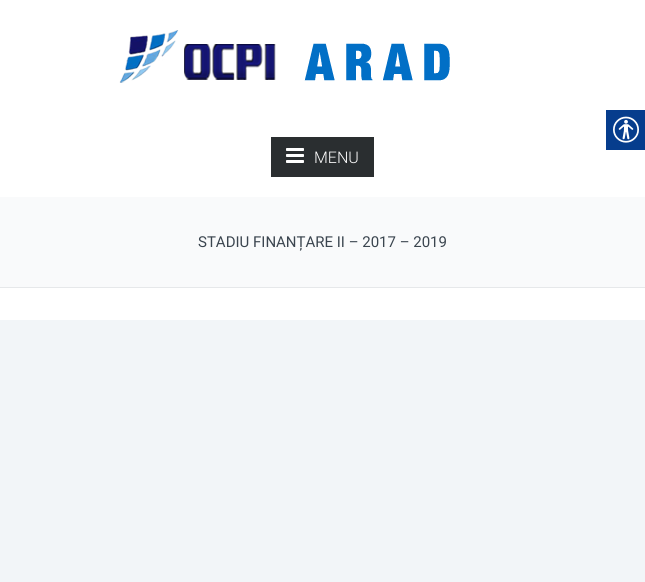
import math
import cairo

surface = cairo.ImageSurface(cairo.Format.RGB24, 645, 582)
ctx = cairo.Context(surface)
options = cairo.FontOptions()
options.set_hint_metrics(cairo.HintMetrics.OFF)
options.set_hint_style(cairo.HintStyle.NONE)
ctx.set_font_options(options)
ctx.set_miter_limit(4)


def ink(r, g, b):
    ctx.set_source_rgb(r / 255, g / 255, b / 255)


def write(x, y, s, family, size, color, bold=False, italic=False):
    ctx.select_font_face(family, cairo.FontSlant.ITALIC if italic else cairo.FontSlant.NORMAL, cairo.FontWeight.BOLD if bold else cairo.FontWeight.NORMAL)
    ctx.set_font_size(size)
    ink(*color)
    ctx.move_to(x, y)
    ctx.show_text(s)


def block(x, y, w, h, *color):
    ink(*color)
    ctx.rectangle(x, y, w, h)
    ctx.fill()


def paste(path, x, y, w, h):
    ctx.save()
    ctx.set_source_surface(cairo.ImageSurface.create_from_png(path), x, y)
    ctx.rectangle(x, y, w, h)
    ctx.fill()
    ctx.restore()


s1 = dict(family="Roboto Light", size=16, color=(255, 255, 255))
s2 = dict(family="Roboto", size=15, color=(59, 69, 79))

ink(255, 255, 255)
ctx.paint()
block(606, 110, 39, 40, 6, 61, 141)
paste("pic1.png", 613, 116, 26, 27)
paste("pic2.png", 119, 30, 331, 53)
block(271, 137, 103, 40, 42, 46, 48)
paste("pic3.png", 286, 148, 18, 15)
write(314, 163, "MENU", **s1)
block(0, 197, 645, 90, 249, 250, 251)
block(0, 287, 645, 1, 230, 232, 234)
write(198, 247, "STADIU FINANȚARE II – 2017 – 2019", **s2)
block(0, 320, 645, 262, 242, 245, 248)
surface.write_to_png("screenshot.png")
